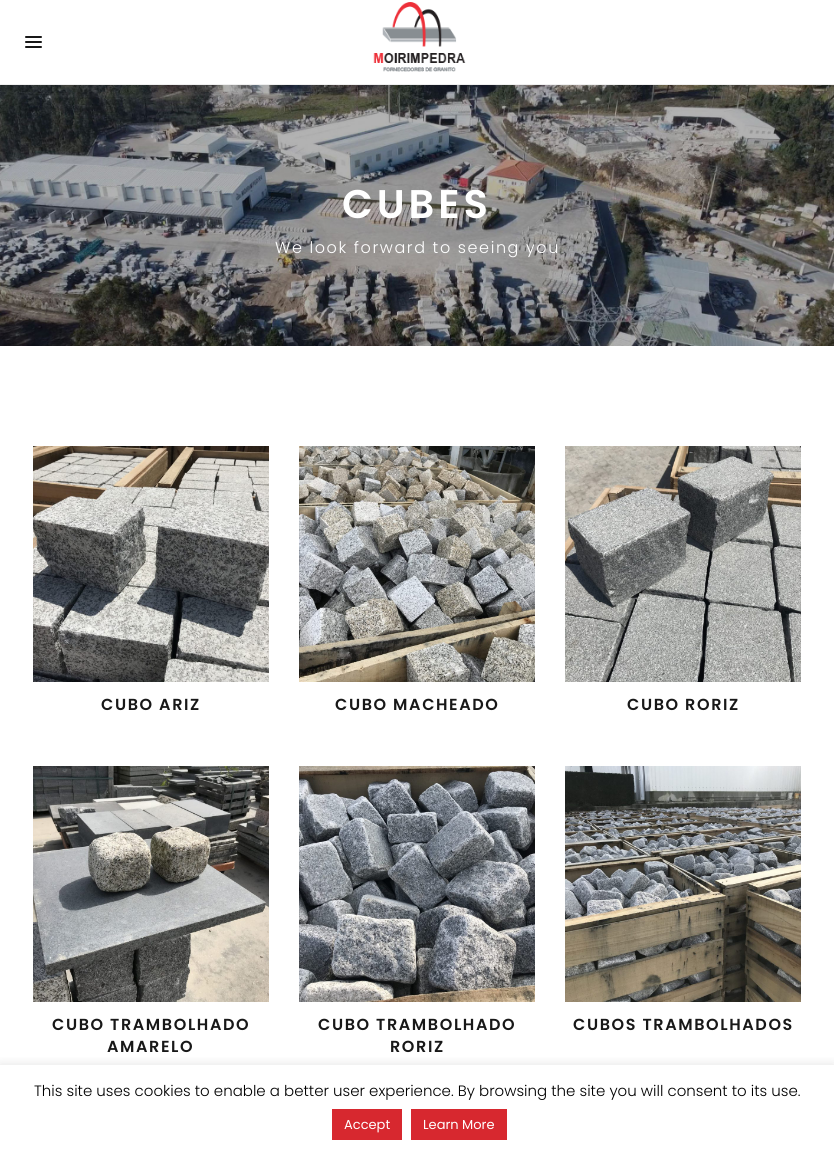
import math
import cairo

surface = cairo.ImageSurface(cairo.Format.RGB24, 834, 1152)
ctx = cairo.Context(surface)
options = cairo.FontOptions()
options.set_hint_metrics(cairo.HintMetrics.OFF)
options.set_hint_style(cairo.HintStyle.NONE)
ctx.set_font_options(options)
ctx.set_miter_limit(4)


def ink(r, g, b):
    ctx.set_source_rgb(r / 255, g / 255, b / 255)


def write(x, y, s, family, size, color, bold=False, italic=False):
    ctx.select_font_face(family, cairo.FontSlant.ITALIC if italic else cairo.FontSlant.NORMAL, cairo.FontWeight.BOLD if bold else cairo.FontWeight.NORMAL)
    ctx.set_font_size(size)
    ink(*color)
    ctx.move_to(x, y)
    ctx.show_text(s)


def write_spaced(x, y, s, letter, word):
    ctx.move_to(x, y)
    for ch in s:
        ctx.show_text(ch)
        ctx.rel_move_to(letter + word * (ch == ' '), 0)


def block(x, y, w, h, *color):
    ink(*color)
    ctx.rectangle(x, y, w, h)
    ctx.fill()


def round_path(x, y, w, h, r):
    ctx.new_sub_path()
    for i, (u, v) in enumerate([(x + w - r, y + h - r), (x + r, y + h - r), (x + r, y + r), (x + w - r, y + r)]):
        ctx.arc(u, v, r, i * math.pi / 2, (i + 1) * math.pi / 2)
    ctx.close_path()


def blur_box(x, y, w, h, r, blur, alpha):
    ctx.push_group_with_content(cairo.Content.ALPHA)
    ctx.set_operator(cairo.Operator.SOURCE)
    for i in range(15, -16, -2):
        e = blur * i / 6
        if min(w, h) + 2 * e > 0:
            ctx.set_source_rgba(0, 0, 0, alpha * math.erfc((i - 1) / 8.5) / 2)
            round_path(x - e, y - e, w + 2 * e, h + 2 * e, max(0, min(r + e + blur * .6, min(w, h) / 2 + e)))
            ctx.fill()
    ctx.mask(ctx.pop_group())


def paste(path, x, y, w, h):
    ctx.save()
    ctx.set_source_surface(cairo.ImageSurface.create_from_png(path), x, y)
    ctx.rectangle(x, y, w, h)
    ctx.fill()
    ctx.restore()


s1 = dict(family="Poppins Light", size=15, color=(0, 0, 0))
s2 = dict(family="Poppins", size=13, color=(255, 255, 255))

ink(255, 255, 255)
ctx.paint()
block(0, 84, 834, 1, 239, 239, 239)
ink(24, 24, 24)
round_path(25, 36, 17, 2, 1)
ctx.fill()
round_path(25, 41, 17, 2, 1)
ctx.fill()
round_path(25, 46, 17, 2, 1)
ctx.fill()
paste("pic1.png", 373, 2, 93, 70)
paste("pic2.png", 0, 85, 834, 261)
ctx.select_font_face("Poppins SemiBold")
ctx.set_font_size(40)
ink(255, 255, 255)
write_spaced(342, 218, "CUBES", 4, 0)
ctx.select_font_face("Poppins Light")
ctx.set_font_size(16)
write_spaced(275, 253, "We look forward to seeing you", 1.6, 0)
paste("pic3.png", 33, 446, 236, 236)
ctx.select_font_face("Poppins SemiBold")
ink(24, 24, 24)
write_spaced(101, 710, "CUBO ARIZ", 1.6, 0)
paste("pic4.png", 299, 446, 236, 236)
write_spaced(335, 710, "CUBO MACHEADO", 1.6, 0)
paste("pic5.png", 565, 446, 236, 236)
write_spaced(627, 710, "CUBO RORIZ", 1.6, 0)
paste("pic6.png", 33, 766, 236, 236)
write_spaced(52, 1030, "CUBO TRAMBOLHADO", 1.6, 0)
write_spaced(107, 1052, "AMARELO", 1.6, 0)
paste("pic7.png", 299, 766, 236, 236)
write_spaced(318, 1030, "CUBO TRAMBOLHADO", 1.6, 0)
write_spaced(390, 1052, "RORIZ", 1.6, 0)
paste("pic8.png", 565, 766, 236, 236)
write_spaced(573, 1030, "CUBOS TRAMBOLHADOS", 1.6, 0)
ctx.save()
ctx.rectangle(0, 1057, 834, 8)
ctx.clip()
ink(172, 171, 171)
blur_box(0, 1064, 834, 87, 0, 5, 0.3)
ctx.restore()
write(34, 1096, "This site uses cookies to enable a better user experience. By browsing the site you will consent to its use.", **s1)
block(332, 1109, 70, 31, 215, 40, 47)
write(344, 1129, "Accept", **s2)
block(411, 1109, 96, 31, 215, 40, 47)
write(423, 1129, "Learn More", **s2)
surface.write_to_png("screenshot.png")
